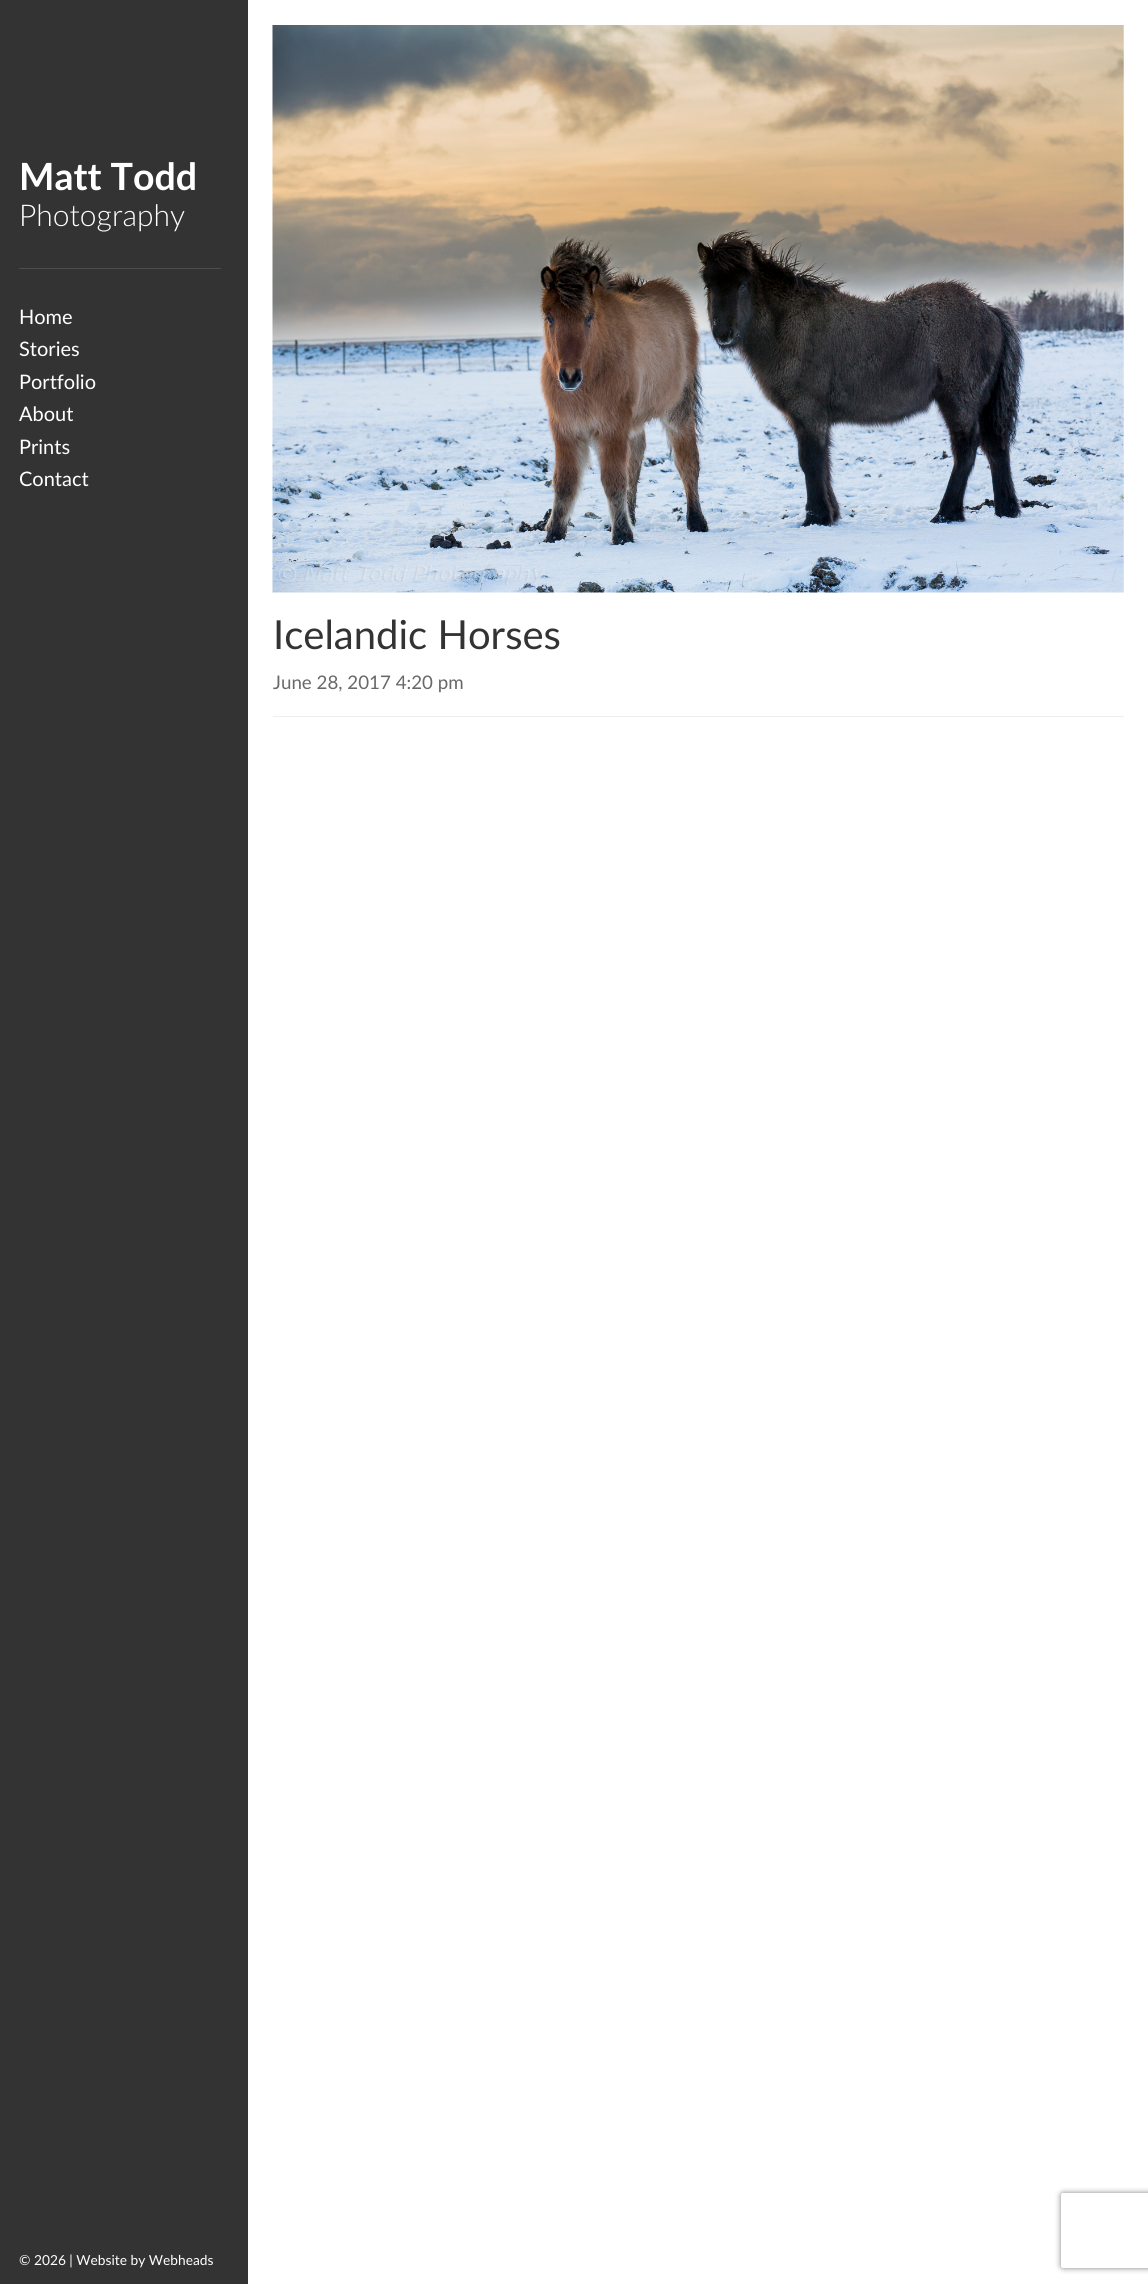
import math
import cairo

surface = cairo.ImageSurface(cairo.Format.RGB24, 1148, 2284)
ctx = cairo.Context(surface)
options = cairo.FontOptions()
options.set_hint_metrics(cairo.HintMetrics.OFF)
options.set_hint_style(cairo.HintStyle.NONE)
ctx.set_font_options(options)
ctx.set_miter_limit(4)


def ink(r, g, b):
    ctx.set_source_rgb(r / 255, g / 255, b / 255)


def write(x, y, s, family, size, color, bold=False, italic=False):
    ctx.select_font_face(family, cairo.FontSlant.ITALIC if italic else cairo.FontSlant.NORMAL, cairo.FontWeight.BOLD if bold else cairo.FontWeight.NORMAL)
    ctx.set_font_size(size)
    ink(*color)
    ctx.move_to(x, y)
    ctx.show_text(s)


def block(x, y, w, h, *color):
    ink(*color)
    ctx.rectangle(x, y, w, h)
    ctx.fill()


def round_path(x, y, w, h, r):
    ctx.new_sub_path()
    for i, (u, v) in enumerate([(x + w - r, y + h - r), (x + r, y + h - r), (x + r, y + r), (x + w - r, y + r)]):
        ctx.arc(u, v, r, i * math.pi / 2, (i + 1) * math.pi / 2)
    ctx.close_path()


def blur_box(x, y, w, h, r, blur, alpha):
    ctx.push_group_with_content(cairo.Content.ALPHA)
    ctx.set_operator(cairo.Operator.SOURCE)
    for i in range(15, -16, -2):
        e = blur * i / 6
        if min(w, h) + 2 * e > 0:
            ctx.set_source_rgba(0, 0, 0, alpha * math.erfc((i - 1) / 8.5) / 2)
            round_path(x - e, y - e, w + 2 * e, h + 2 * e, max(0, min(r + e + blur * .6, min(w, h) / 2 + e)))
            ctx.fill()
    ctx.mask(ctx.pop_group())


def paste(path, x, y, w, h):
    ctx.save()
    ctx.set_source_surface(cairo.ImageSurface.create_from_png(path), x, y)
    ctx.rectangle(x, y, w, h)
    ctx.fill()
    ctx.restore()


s1 = dict(family="Lato", size=37.5, color=(255, 255, 255), bold=True)
s2 = dict(family="Lato Light", size=30, color=(255, 255, 255))
s3 = dict(family="Lato", size=20, color=(255, 255, 255))
s4 = dict(family="Lato", size=13.75, color=(255, 255, 255))
s5 = dict(family="Lato", size=40, color=(51, 51, 51))
s6 = dict(family="Lato", size=18.75, color=(104, 104, 104))

ink(51, 51, 51)
ctx.paint()
block(19, 268, 202, 1, 77, 77, 77)
write(19, 190, "Matt Todd", **s1)
write(19, 226, "Photography", **s2)
write(19, 324, "Home", **s3)
write(19, 356, "Stories", **s3)
write(19, 389, "Portfolio", **s3)
write(19, 421, "About", **s3)
write(19, 454, "Prints", **s3)
write(19, 486, "Contact", **s3)
write(19, 2265, "© 2026 | Website by Webheads", **s4)
block(248, 0, 900, 2284, 255, 255, 255)
paste("pic1.png", 272, 25, 852, 568)
write(273, 649, "Icelandic Horses", **s5)
write(273, 689, "June 28, 2017 4:20 pm", **s6)
block(273, 716, 851, 1, 238, 238, 238)
ctx.save()
ctx.set_fill_rule(cairo.FillRule.EVEN_ODD)
ctx.new_path()
ctx.move_to(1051, 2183)
ctx.line_to(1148, 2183)
ctx.line_to(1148, 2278)
ctx.line_to(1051, 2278)
ctx.close_path()
ctx.move_to(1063.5, 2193)
ctx.line_to(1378.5, 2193)
ctx.curve_to(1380, 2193, 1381, 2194, 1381, 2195.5)
ctx.line_to(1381, 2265.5)
ctx.curve_to(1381, 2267, 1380, 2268, 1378.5, 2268)
ctx.line_to(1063.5, 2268)
ctx.curve_to(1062, 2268, 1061, 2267, 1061, 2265.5)
ctx.line_to(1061, 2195.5)
ctx.curve_to(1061, 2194, 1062, 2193, 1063.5, 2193)
ctx.close_path()
ctx.clip()
ink(128, 128, 128)
blur_box(1061, 2193, 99, 75, 2.5, 3, 1)
ctx.restore()
surface.write_to_png("screenshot.png")
